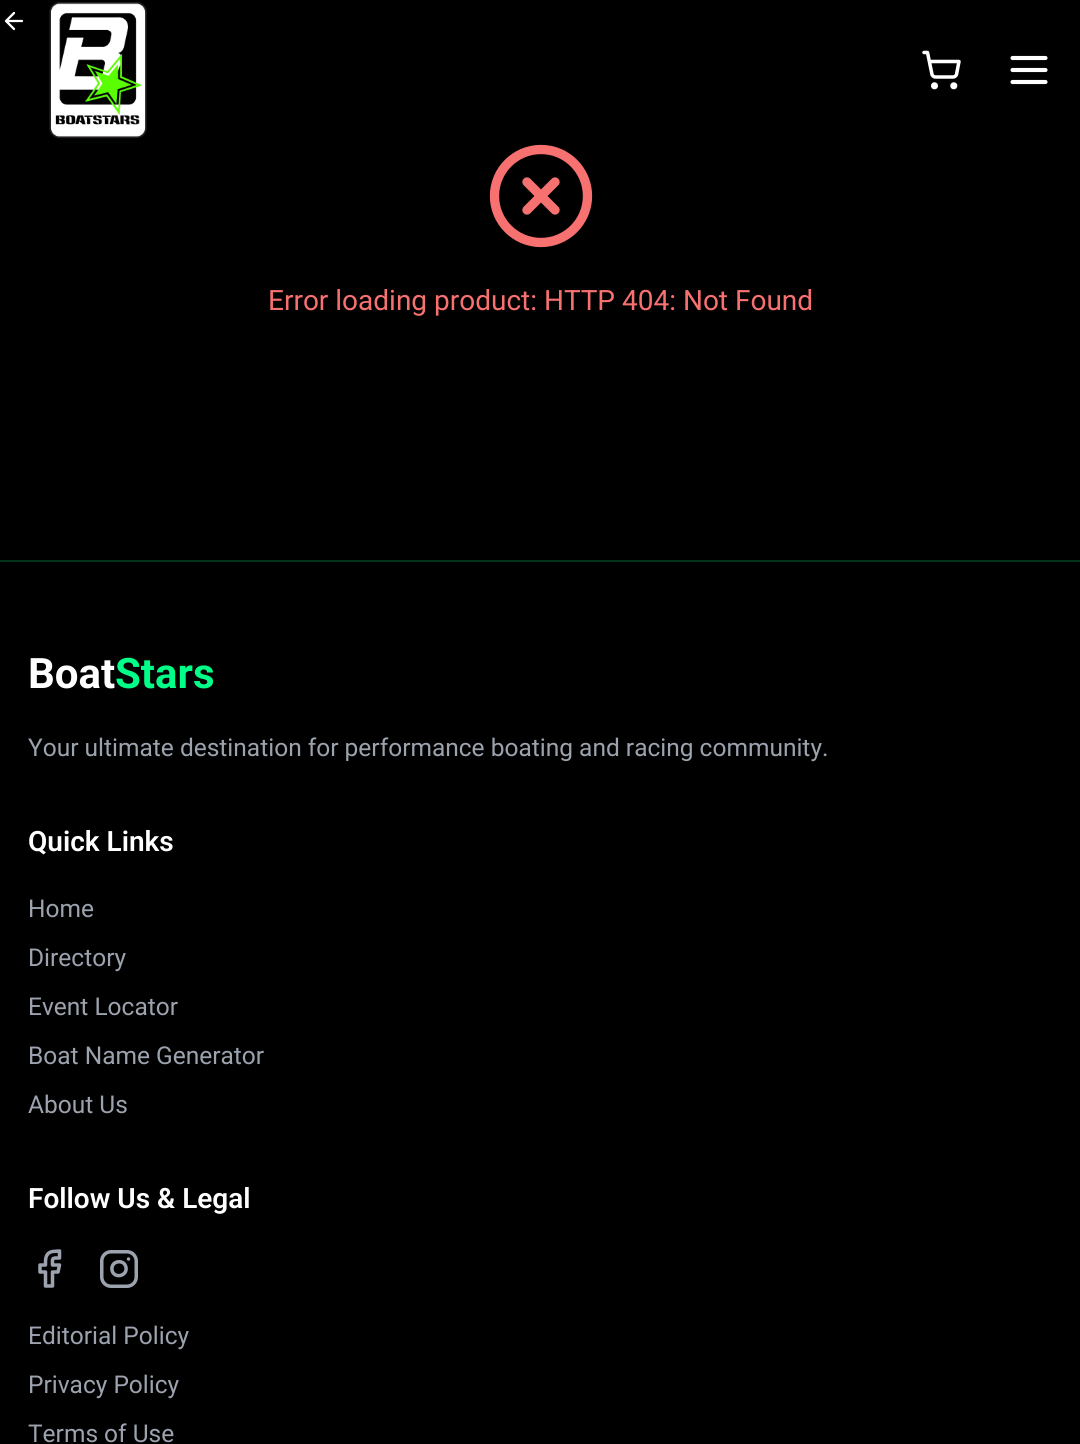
import math
import cairo

surface = cairo.ImageSurface(cairo.Format.RGB24, 1080, 1444)
ctx = cairo.Context(surface)
options = cairo.FontOptions()
options.set_hint_metrics(cairo.HintMetrics.OFF)
options.set_hint_style(cairo.HintStyle.NONE)
ctx.set_font_options(options)
ctx.set_miter_limit(4)


def ink(r, g, b):
    ctx.set_source_rgb(r / 255, g / 255, b / 255)


def write(x, y, s, family, size, color, bold=False, italic=False):
    ctx.select_font_face(family, cairo.FontSlant.ITALIC if italic else cairo.FontSlant.NORMAL, cairo.FontWeight.BOLD if bold else cairo.FontWeight.NORMAL)
    ctx.set_font_size(size)
    ink(*color)
    ctx.move_to(x, y)
    ctx.show_text(s)


def block(x, y, w, h, *color):
    ink(*color)
    ctx.rectangle(x, y, w, h)
    ctx.fill()


def round_path(x, y, w, h, r):
    ctx.new_sub_path()
    for i, (u, v) in enumerate([(x + w - r, y + h - r), (x + r, y + h - r), (x + r, y + r), (x + w - r, y + r)]):
        ctx.arc(u, v, r, i * math.pi / 2, (i + 1) * math.pi / 2)
    ctx.close_path()


def paste(path, x, y, w, h):
    ctx.save()
    ctx.set_source_surface(cairo.ImageSurface.create_from_png(path), x, y)
    ctx.rectangle(x, y, w, h)
    ctx.fill()
    ctx.restore()


s1 = dict(family="Roboto", size=28, color=(248, 113, 113))
s2 = dict(family="Roboto", size=42, color=(255, 255, 255), bold=True)
s3 = dict(family="Roboto", size=42, color=(0, 255, 136), bold=True)
s4 = dict(family="Roboto", size=24.5, color=(156, 163, 175))
s5 = dict(family="Roboto SemiBold", size=28, color=(255, 255, 255))

ink(0, 0, 0)
ctx.paint()
paste("pic1.png", 49, 2, 98, 137)
ctx.arc(934.5, 85.8, 1.8, 0, 2 * math.pi)
ink(255, 255, 255)
ctx.set_line_width(3.5)
ctx.stroke()
ctx.arc(953.8, 85.8, 1.8, 0, 2 * math.pi)
ctx.stroke()
ctx.new_path()
ctx.move_to(924, 52.5)
ctx.line_to(927.5, 52.5)
ctx.line_to(932, 74.5)
ctx.curve_to(932.5, 76, 934, 77, 935.5, 77)
ctx.line_to(953, 77)
ctx.curve_to(954.5, 77, 956, 76, 956.5, 74.5)
ctx.line_to(959, 61.5)
ctx.line_to(929.5, 61.5)
ctx.set_line_cap(cairo.LineCap.ROUND)
ctx.set_line_join(cairo.LineJoin.ROUND)
ctx.stroke()
ctx.new_path()
ctx.move_to(1012.5, 70)
ctx.line_to(1045.5, 70)
ctx.move_to(1012.5, 58)
ctx.line_to(1045.5, 58)
ctx.move_to(1012.5, 82)
ctx.line_to(1045.5, 82)
ctx.set_line_width(4.1)
ctx.stroke()
ctx.new_path()
ctx.move_to(14, 29)
ctx.line_to(6, 21)
ctx.line_to(14, 13)
ctx.move_to(22, 21)
ctx.line_to(6, 21)
ctx.set_line_width(2.3)
ctx.stroke()
ctx.arc(541, 196, 46.5, 0, 2 * math.pi)
ink(248, 113, 113)
ctx.set_line_width(9.3)
ctx.set_line_cap(cairo.LineCap.BUTT)
ctx.set_line_join(cairo.LineJoin.MITER)
ctx.stroke()
ctx.new_path()
ctx.move_to(555, 182)
ctx.line_to(527, 210)
ctx.move_to(527, 182)
ctx.line_to(555, 210)
ctx.set_line_cap(cairo.LineCap.ROUND)
ctx.set_line_join(cairo.LineJoin.ROUND)
ctx.stroke()
write(268, 310, "Error loading product: HTTP 404: Not Found", **s1)
block(0, 560, 1080, 2, 0, 51, 27)
write(28, 688, "Boat", **s2)
write(115, 688, "Stars", **s3)
write(28, 756, "Your ultimate destination for performance boating and racing community.", **s4)
write(28, 851, "Quick Links", **s5)
write(28, 917, "Home", **s4)
write(28, 966, "Directory", **s4)
write(28, 1015, "Event Locator", **s4)
write(28, 1064, "Boat Name Generator", **s4)
write(28, 1113, "About Us", **s4)
write(28, 1208, "Follow Us & Legal", **s5)
ctx.new_path()
ctx.move_to(59.5, 1251)
ctx.line_to(52.5, 1251.5)
ctx.curve_to(45, 1253, 45.5, 1259.5, 45.5, 1265)
ctx.line_to(40, 1265)
ctx.line_to(40, 1272)
ctx.line_to(45.5, 1272)
ctx.line_to(45.5, 1286)
ctx.line_to(52.5, 1286)
ctx.line_to(52.5, 1272)
ctx.line_to(58, 1272)
ctx.line_to(59.5, 1265)
ctx.line_to(52.5, 1265)
ctx.curve_to(52.5, 1257.5, 51.5, 1258, 59.5, 1258)
ctx.close_path()
ink(156, 163, 175)
ctx.set_line_width(3.5)
ctx.stroke()
round_path(101.75, 1251.75, 34.5, 34.5, 9.25)
ctx.set_line_cap(cairo.LineCap.BUTT)
ctx.set_line_join(cairo.LineJoin.MITER)
ctx.stroke()
ctx.new_path()
ctx.move_to(126, 1267.5)
ctx.curve_to(127.5, 1276.5, 113.5, 1279, 112, 1270)
ctx.curve_to(110.5, 1260.5, 124.5, 1258.5, 126, 1267.5)
ctx.close_path()
ctx.move_to(128.5, 1259)
ctx.line_to(128.5, 1259)
ctx.set_line_cap(cairo.LineCap.ROUND)
ctx.set_line_join(cairo.LineJoin.ROUND)
ctx.stroke()
write(28, 1344, "Editorial Policy", **s4)
write(28, 1393, "Privacy Policy", **s4)
write(28, 1442, "Terms of Use", **s4)
surface.write_to_png("screenshot.png")
